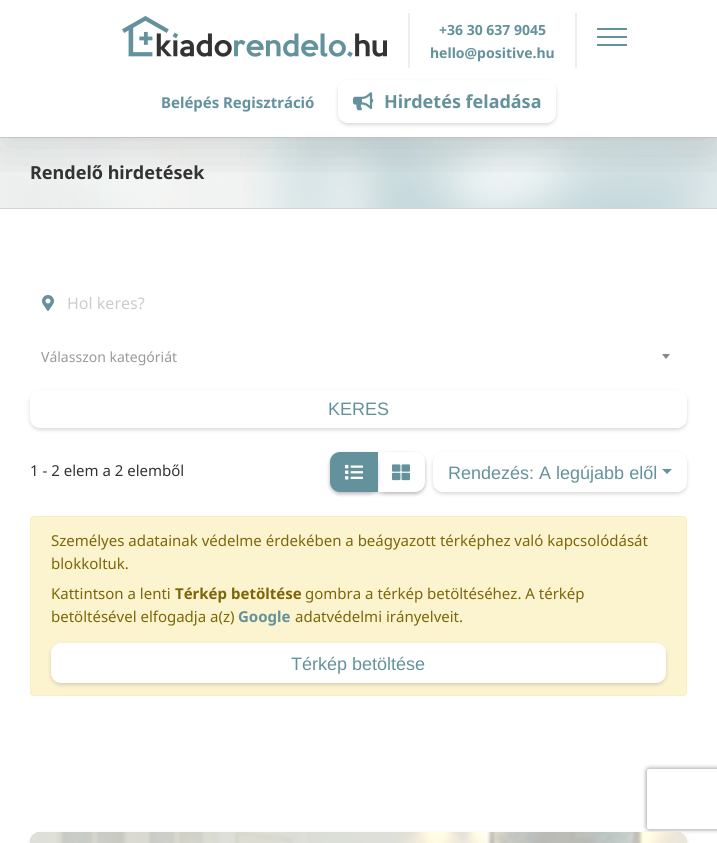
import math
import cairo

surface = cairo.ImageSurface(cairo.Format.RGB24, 717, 843)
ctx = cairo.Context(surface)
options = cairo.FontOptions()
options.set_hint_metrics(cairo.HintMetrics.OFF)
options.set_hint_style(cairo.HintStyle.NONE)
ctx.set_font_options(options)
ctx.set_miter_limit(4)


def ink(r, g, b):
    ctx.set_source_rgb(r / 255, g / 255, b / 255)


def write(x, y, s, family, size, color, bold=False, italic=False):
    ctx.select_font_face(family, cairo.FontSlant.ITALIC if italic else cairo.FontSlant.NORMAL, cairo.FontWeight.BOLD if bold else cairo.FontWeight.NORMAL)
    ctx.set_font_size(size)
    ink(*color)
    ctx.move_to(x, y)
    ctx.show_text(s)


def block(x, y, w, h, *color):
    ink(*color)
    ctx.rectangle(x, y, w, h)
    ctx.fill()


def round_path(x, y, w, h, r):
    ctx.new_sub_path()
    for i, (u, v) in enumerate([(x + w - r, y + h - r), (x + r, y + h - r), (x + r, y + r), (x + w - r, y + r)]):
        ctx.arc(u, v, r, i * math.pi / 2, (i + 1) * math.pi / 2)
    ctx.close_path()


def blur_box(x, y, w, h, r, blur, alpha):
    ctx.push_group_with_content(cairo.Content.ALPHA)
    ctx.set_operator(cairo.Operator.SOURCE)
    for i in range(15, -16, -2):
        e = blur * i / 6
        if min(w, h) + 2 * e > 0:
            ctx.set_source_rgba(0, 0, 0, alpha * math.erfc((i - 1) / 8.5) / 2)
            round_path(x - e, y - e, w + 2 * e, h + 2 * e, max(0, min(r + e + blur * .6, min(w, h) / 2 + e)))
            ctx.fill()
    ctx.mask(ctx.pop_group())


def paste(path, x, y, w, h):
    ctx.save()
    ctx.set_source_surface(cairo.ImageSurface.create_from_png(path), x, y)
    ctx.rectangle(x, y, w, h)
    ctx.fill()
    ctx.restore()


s1 = dict(family="Noto Sans", size=14, color=(100, 146, 156), bold=True)
s2 = dict(family="Noto Sans", size=15, color=(100, 146, 156), bold=True)
s3 = dict(family="Noto Sans", size=18, color=(100, 146, 156), bold=True)
s4 = dict(family="Noto Sans", size=18, color=(51, 51, 51), bold=True)
s5 = dict(family="Noto Sans", size=16, color=(204, 204, 204))
s6 = dict(family="Noto Sans", size=14, color=(153, 153, 153))
s7 = dict(family="Liberation Sans", size=18, color=(100, 146, 156))
s8 = dict(family="Noto Sans", size=15, color=(51, 51, 51))
s9 = dict(family="Noto Sans", size=15, color=(125, 102, 8))
s10 = dict(family="Noto Sans", size=15, color=(125, 102, 8), bold=True)

ink(255, 255, 255)
ctx.paint()
block(0, 138, 277, 70, 248, 253, 255)
paste("pic3.png", 0, 138, 717, 70)
block(0, 137, 717, 1, 210, 211, 212)
block(0, 208, 717, 1, 210, 211, 212)
ctx.save()
ctx.rectangle(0, 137, 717, 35)
ctx.clip()
ink(0, 0, 0)
blur_box(2, 12, 713, 133, 0, 25, 0.14)
ctx.restore()
paste("pic1.png", 122, 16, 265, 41)
block(575, 13, 2, 55, 238, 238, 238)
block(408, 13, 2, 55, 238, 238, 238)
write(439, 35, "+36 30 637 9045", **s1)
write(430, 58, "hello@positive.hu", **s1)
block(597, 28, 30, 2, 100, 146, 156)
block(597, 36, 30, 2, 100, 146, 156)
block(597, 44, 30, 2, 100, 146, 156)
write(161, 108, "Belépés", **s2)
write(223, 108, "Regisztráció", **s2)
ctx.save()
ctx.set_fill_rule(cairo.FillRule.EVEN_ODD)
ctx.new_path()
ctx.move_to(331, 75)
ctx.line_to(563, 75)
ctx.line_to(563, 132)
ctx.line_to(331, 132)
ctx.close_path()
ctx.move_to(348, 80)
ctx.line_to(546, 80)
ctx.curve_to(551.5, 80, 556, 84.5, 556, 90)
ctx.line_to(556, 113)
ctx.curve_to(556, 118.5, 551.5, 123, 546, 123)
ctx.line_to(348, 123)
ctx.curve_to(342.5, 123, 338, 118.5, 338, 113)
ctx.line_to(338, 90)
ctx.curve_to(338, 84.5, 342.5, 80, 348, 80)
ctx.close_path()
ctx.clip()
ink(0, 0, 0)
blur_box(338, 82, 218, 43, 10, 2, 0.15)
ctx.restore()
paste("pic2.png", 353, 92, 21, 19)
write(384, 108, "Hirdetés feladása", **s3)
write(30, 179, "Rendelő hirdetések", **s4)
paste("pic4.png", 42, 295, 12, 16)
write(67, 309, "Hol keres?", **s5)
write(41, 362, "Válasszon kategóriát", **s6)
ink(136, 136, 136)
ctx.new_path()
ctx.move_to(662, 354)
ctx.line_to(670, 354)
ctx.line_to(666, 359)
ctx.close_path()
ctx.fill()
ink(0, 0, 0)
blur_box(30, 392, 657, 38, 10, 2, 0.15)
ink(255, 255, 255)
round_path(30, 390, 657, 38, 10)
ctx.fill()
write(328, 415, "KERES", **s7)
write(30, 476, "1 - 2 elem a 2 elemből", **s8)
ink(0, 0, 0)
blur_box(330, 454, 95, 40, 10, 2, 0.15)
blur_box(377, 454, 48, 40, 10, 2, 0.15)
ink(255, 255, 255)
ctx.new_path()
ctx.move_to(377, 452)
ctx.line_to(415, 452)
ctx.curve_to(420.5, 452, 425, 456.5, 425, 462)
ctx.line_to(425, 482)
ctx.curve_to(425, 487.5, 420.5, 492, 415, 492)
ctx.line_to(377, 492)
ctx.close_path()
ctx.fill()
ink(0, 0, 0)
blur_box(330, 454, 48, 40, 10, 2, 0.15)
ink(100, 146, 156)
ctx.new_path()
ctx.move_to(340, 452)
ctx.line_to(378, 452)
ctx.line_to(378, 492)
ctx.line_to(340, 492)
ctx.curve_to(334.5, 492, 330, 487.5, 330, 482)
ctx.line_to(330, 462)
ctx.curve_to(330, 456.5, 334.5, 452, 340, 452)
ctx.close_path()
ctx.fill()
paste("pic5.png", 345, 464, 18, 16)
paste("pic6.png", 392, 464, 18, 17)
ink(0, 0, 0)
blur_box(433, 454, 254, 40, 10, 2, 0.15)
ink(255, 255, 255)
round_path(433, 452, 254, 40, 10)
ctx.fill()
write(448, 479, "Rendezés: A legújabb elől", **s7)
ctx.new_path()
ctx.move_to(662, 469)
ctx.line_to(672, 469)
ctx.line_to(667, 474)
ctx.close_path()
ctx.fill()
ink(252, 243, 207)
round_path(30.5, 516.5, 656, 179, 3.5)
ctx.fill_preserve()
ink(251, 238, 188)
ctx.set_line_width(1)
ctx.stroke()
write(51, 546, "Személyes adatainak védelme érdekében a beágyazott térképhez való kapcsolódását", **s9)
write(51, 569, "blokkoltuk.", **s9)
write(51, 599, "Kattintson a lenti", **s9)
write(175, 599, "Térkép betöltése", **s10)
write(305, 599, "gombra a térkép betöltéséhez. A térkép", **s9)
write(51, 622, "betöltésével elfogadja a(z)", **s9)
write(238, 622, "Google", **s2)
write(295, 622, "adatvédelmi irányelveit.", **s9)
ink(0, 0, 0)
blur_box(51, 645, 615, 40, 10, 2, 0.15)
ink(255, 255, 255)
round_path(51, 643, 615, 40, 10)
ctx.fill()
write(291, 670, "Térkép betöltése", **s7)
ink(0, 0, 0)
blur_box(30, 834, 657, 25, 10, 2, 0.15)
ctx.save()
ctx.set_fill_rule(cairo.FillRule.EVEN_ODD)
ctx.new_path()
ctx.move_to(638, 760)
ctx.line_to(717, 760)
ctx.line_to(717, 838)
ctx.line_to(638, 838)
ctx.close_path()
ctx.move_to(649, 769)
ctx.line_to(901, 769)
ctx.curve_to(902, 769, 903, 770, 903, 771)
ctx.line_to(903, 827)
ctx.curve_to(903, 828, 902, 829, 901, 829)
ctx.line_to(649, 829)
ctx.curve_to(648, 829, 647, 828, 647, 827)
ctx.line_to(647, 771)
ctx.curve_to(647, 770, 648, 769, 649, 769)
ctx.close_path()
ctx.clip()
ink(128, 128, 128)
blur_box(647, 769, 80, 60, 2, 2.5, 1)
ctx.restore()
paste("pic7.png", 30, 832, 657, 11)
ctx.set_source_rgba(1, 1, 1, 0.7)
ctx.new_path()
ctx.move_to(40, 832)
ctx.line_to(677, 832)
ctx.curve_to(682.5, 832, 687, 836.5, 687, 842)
ctx.line_to(687, 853)
ctx.line_to(30, 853)
ctx.line_to(30, 842)
ctx.curve_to(30, 836.5, 34.5, 832, 40, 832)
ctx.close_path()
ctx.fill()
surface.write_to_png("screenshot.png")
